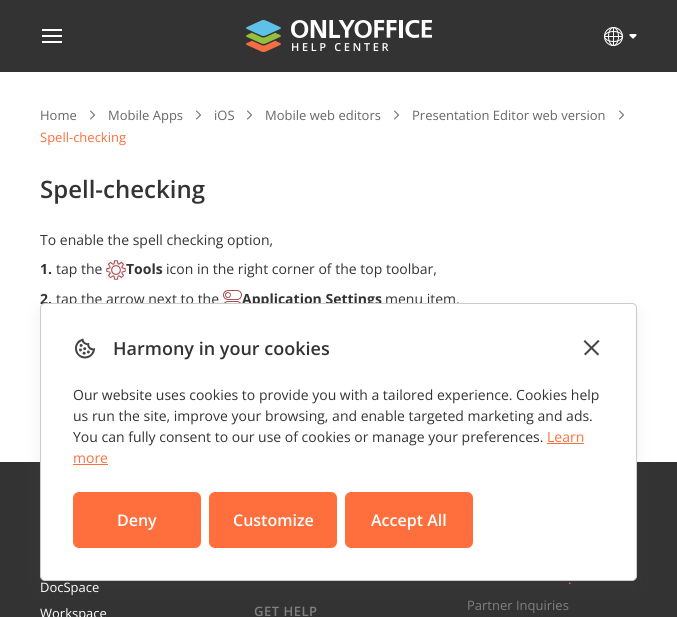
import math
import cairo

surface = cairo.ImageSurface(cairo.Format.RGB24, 677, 617)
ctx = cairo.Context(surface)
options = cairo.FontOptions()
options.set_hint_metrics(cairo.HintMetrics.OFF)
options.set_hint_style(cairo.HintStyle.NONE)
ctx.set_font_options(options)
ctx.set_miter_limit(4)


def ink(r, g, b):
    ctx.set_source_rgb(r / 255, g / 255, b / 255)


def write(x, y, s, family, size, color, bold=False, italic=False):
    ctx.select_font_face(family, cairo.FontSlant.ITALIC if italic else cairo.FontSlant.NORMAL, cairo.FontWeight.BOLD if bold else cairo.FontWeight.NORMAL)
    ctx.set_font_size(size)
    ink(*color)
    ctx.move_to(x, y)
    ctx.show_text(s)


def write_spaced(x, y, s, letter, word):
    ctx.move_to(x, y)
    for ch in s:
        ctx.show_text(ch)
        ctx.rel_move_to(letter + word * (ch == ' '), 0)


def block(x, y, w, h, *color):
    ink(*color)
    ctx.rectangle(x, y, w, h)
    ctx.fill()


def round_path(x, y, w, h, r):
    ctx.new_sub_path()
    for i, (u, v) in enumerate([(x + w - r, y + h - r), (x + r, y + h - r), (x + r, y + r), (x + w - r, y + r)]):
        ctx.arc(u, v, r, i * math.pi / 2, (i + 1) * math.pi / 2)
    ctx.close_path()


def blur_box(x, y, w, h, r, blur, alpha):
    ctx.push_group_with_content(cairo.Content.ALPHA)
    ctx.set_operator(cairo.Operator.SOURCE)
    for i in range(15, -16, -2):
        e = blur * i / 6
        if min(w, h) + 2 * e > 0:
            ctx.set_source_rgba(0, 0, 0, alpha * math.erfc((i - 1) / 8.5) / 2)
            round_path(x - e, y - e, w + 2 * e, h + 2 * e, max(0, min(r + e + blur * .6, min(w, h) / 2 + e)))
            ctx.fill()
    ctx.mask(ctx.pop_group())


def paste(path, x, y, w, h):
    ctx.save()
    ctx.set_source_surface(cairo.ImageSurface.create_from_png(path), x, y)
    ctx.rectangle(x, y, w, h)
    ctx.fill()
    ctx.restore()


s1 = dict(family="Open Sans", size=13, color=(102, 102, 102))
s2 = dict(family="Open Sans", size=13, color=(255, 111, 61))
s3 = dict(family="Open Sans SemiBold", size=24, color=(51, 51, 51))
s4 = dict(family="Open Sans", size=14, color=(51, 51, 51))
s5 = dict(family="Open Sans", size=14, color=(51, 51, 51), bold=True)
s6 = dict(family="Open Sans SemiBold", size=18, color=(51, 51, 51))
s7 = dict(family="Open Sans", size=14, color=(255, 111, 61))
s8 = dict(family="Open Sans SemiBold", size=16, color=(255, 255, 255))
s9 = dict(family="Open Sans", size=13, color=(255, 255, 255))
s10 = dict(family="Open Sans", size=13, color=(128, 128, 128))

ink(255, 255, 255)
ctx.paint()
block(0, 0, 677, 72, 51, 51, 51)
block(42, 29, 20, 2, 255, 255, 255)
block(42, 35, 20, 2, 255, 255, 255)
block(42, 41, 20, 2, 255, 255, 255)
paste("pic1.png", 246, 20, 186, 32)
paste("pic2.png", 604, 27, 19, 19)
paste("pic3.png", 629, 34, 8, 5)
write(40, 120, "Home", **s1)
ctx.new_path()
ctx.move_to(90.5, 119)
ctx.line_to(94.5, 115)
ctx.line_to(90.5, 111)
ctx.set_line_width(1)
ctx.set_line_cap(cairo.LineCap.ROUND)
ctx.stroke()
write(108, 120, "Mobile Apps", **s1)
ctx.new_path()
ctx.move_to(196.5, 119)
ctx.line_to(200.5, 115)
ctx.line_to(196.5, 111)
ctx.stroke()
write(214, 120, "iOS", **s1)
ctx.new_path()
ctx.move_to(247.5, 119)
ctx.line_to(251.5, 115)
ctx.line_to(247.5, 111)
ctx.stroke()
write(265, 120, "Mobile web editors", **s1)
ctx.new_path()
ctx.move_to(394.5, 119)
ctx.line_to(398.5, 115)
ctx.line_to(394.5, 111)
ctx.stroke()
write(412, 120, "Presentation Editor web version", **s1)
ctx.new_path()
ctx.move_to(619.5, 119)
ctx.line_to(623.5, 115)
ctx.line_to(619.5, 111)
ctx.stroke()
write(40, 142, "Spell-checking", **s2)
write(40, 198, "Spell-checking", **s3)
write(40, 245, "To enable the spell checking option,", **s4)
write(40, 274, "1.", **s5)
write(56, 274, "tap the", **s4)
paste("pic4.png", 106, 260, 20, 20)
write(126, 274, "Tools", **s5)
write(166, 274, "icon in the right corner of the top toolbar,", **s4)
write(40, 304, "2.", **s5)
write(56, 304, "tap the arrow next to the", **s4)
paste("pic5.png", 223, 290, 19, 13)
write(242, 304, "Application Settings", **s5)
write(385, 304, "menu item.", **s4)
block(0, 462, 677, 155, 51, 51, 51)
ink(85, 85, 85)
blur_box(40, 310, 597, 278, 5, 7.5, 0.1)
ink(255, 255, 255)
round_path(40.5, 303.5, 596, 277, 4.5)
ctx.fill_preserve()
ink(204, 204, 204)
ctx.set_line_cap(cairo.LineCap.BUTT)
ctx.stroke()
paste("pic6.png", 75, 338, 20, 21)
write(113, 355, "Harmony in your cookies", **s6)
paste("pic7.png", 583, 340, 17, 16)
write(73, 400, "Our website uses cookies to provide you with a tailored experience. Cookies help", **s4)
write(73, 421, "us run the site, improve your browsing, and enable targeted marketing and ads.", **s4)
write(73, 442, "You can fully consent to our use of cookies or manage your preferences.", **s4)
write(547, 442, "Learn", **s7)
block(547, 443, 37, 1, 255, 111, 61)
write(73, 463, "more", **s7)
block(73, 464, 35, 1, 255, 111, 61)
round_path(73, 492, 128, 56, 6)
ctx.fill()
write(117, 526, "Deny", **s8)
ink(255, 111, 61)
round_path(209, 492, 128, 56, 6)
ctx.fill()
write(233, 526, "Customize", **s8)
ink(255, 111, 61)
round_path(345, 492, 128, 56, 6)
ctx.fill()
write(371, 526, "Accept All", **s8)
write(40, 592, "DocSpace", **s9)
write(40, 618, "Workspace", **s9)
ctx.select_font_face("Open Sans SemiBold")
ink(128, 128, 128)
write_spaced(254, 616, "GET HELP", 0.5, 0)
write(568, 584, ".", **s2)
write(467, 610, "Partner Inquiries", **s10)
surface.write_to_png("screenshot.png")
